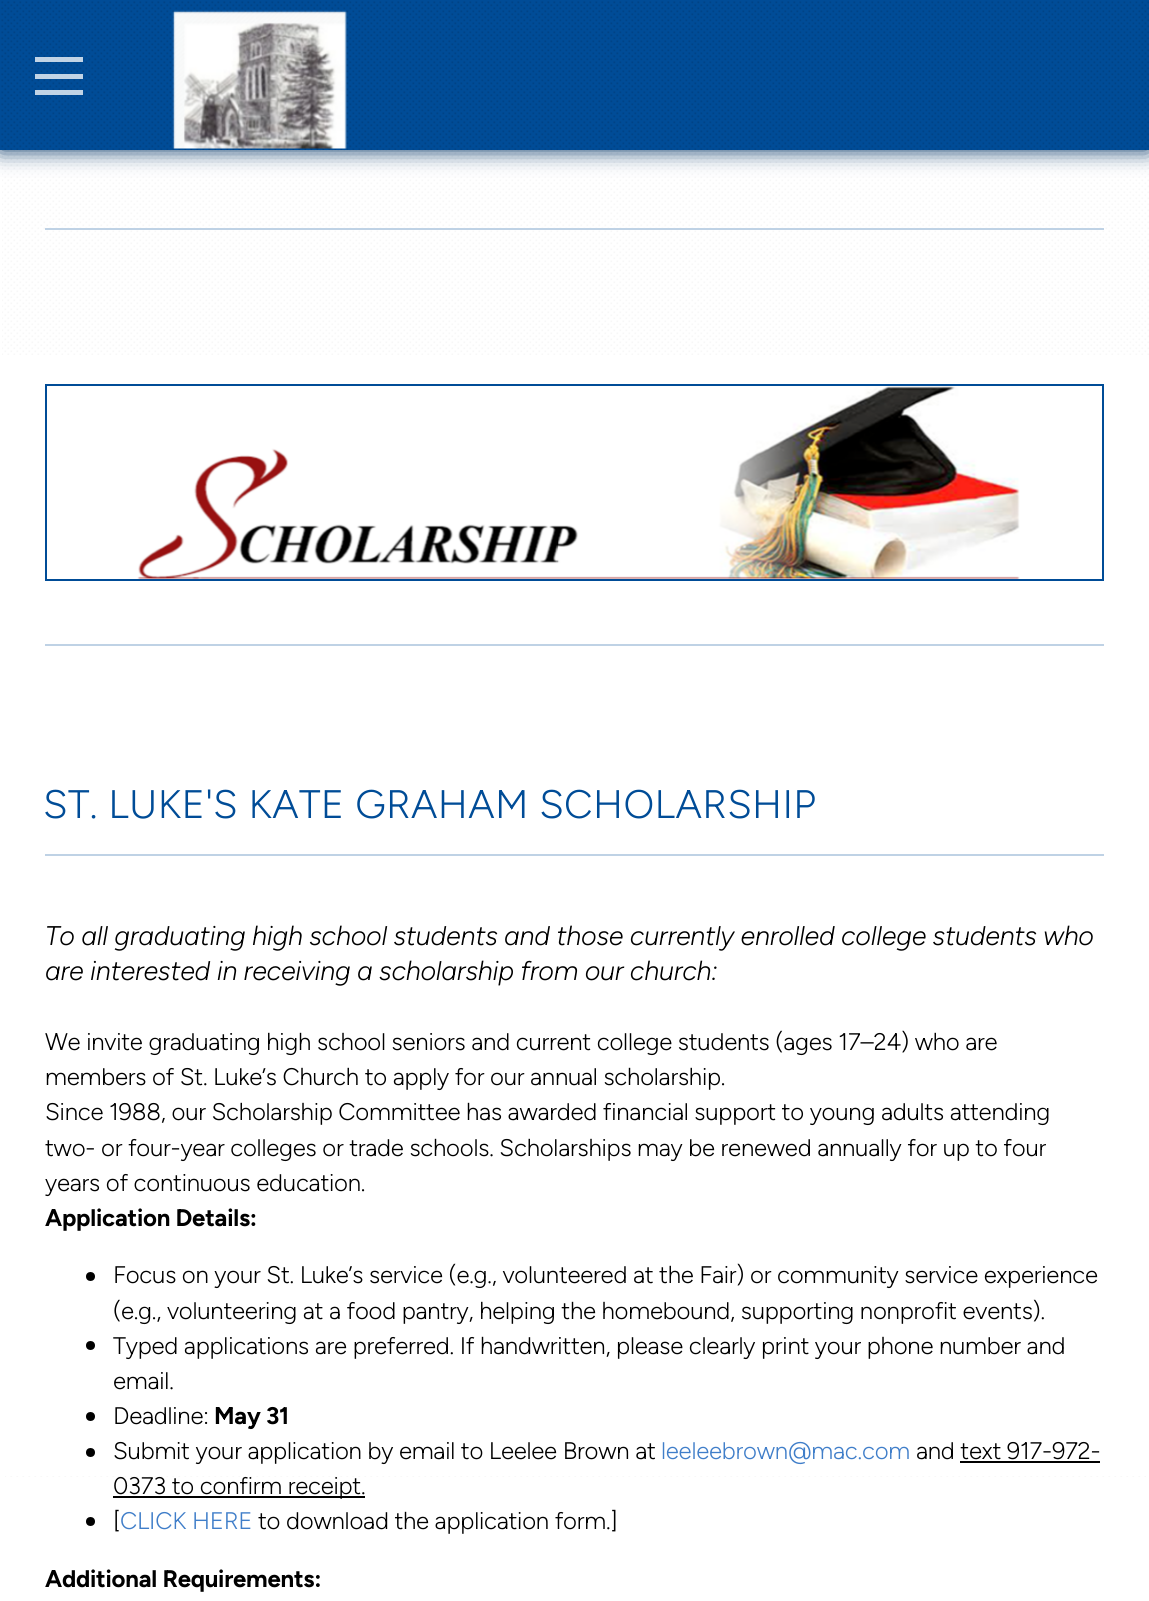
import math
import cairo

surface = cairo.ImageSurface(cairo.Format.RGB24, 1149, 1601)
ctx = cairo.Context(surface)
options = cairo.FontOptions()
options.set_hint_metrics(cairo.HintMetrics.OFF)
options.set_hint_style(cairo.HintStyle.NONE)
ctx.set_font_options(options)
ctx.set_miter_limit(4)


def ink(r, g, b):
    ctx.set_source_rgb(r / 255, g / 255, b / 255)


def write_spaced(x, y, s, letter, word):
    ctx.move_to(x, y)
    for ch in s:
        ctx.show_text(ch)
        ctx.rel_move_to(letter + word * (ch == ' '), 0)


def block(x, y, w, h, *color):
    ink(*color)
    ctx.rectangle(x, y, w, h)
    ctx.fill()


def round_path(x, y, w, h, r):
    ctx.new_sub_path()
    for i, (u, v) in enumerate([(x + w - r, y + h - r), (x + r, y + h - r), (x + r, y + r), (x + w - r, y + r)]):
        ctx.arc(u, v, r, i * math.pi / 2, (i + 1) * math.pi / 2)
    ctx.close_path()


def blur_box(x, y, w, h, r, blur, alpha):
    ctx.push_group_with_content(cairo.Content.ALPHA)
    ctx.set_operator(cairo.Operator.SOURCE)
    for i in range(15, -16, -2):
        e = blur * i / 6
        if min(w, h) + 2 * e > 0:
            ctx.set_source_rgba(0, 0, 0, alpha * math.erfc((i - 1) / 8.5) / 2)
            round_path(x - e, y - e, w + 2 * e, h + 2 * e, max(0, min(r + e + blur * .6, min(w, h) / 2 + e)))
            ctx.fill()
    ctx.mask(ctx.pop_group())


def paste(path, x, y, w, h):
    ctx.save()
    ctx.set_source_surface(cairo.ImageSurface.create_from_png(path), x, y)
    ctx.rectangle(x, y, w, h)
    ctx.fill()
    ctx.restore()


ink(255, 255, 255)
ctx.paint()
paste("pic3.png", 2, 150, 1147, 205)
ink(0, 50, 100)
blur_box(0, 0, 1149, 150, 0, 11, 1)
block(0, 0, 1149, 150, 0, 76, 151)
paste("pic1.png", 1, 1, 1148, 149)
ctx.set_source_rgba(0.949, 0.965, 0.98, 0.8)
ctx.rectangle(35, 57, 48, 5)
ctx.fill()
ctx.rectangle(35, 74, 48, 5)
ctx.fill()
ctx.rectangle(35, 90, 48, 5)
ctx.fill()
paste("pic2.png", 172, 10, 175, 139)
block(45, 228, 1059, 2, 191, 210, 229)
ctx.rectangle(46, 385, 1057, 195)
ink(0, 76, 151)
ctx.stroke()
paste("pic4.png", 137, 386, 883, 193)
block(45, 644, 1059, 2, 191, 210, 229)
paste("pic5.png", 5, 1476, 1141, 1)
block(45, 854, 1059, 2, 191, 210, 229)
ctx.select_font_face("Figtree Light")
ctx.set_font_size(39.8)
ink(0, 76, 151)
write_spaced(43, 818, "ST. LUKE'S KATE GRAHAM SCHOLARSHIP", 0.4, 0)
ctx.select_font_face("Figtree Light", cairo.FontSlant.ITALIC)
ctx.set_font_size(27)
ink(0, 0, 0)
write_spaced(45, 945, "To all graduating high school students and those currently enrolled college students who", -0.23, 0)
write_spaced(45, 980, "are interested in receiving a scholarship from our church:", -0.23, 0)
ctx.select_font_face("Figtree Light")
ctx.set_font_size(24)
write_spaced(45, 1050, "We invite graduating high school seniors and current college students (ages 17–24) who are", -0.23, 0)
write_spaced(45, 1085, "members of St. Luke’s Church to apply for our annual scholarship.", -0.23, 0)
write_spaced(45, 1120, "Since 1988, our Scholarship Committee has awarded financial support to young adults attending", -0.23, 0)
write_spaced(45, 1156, "two- or four-year colleges or trade schools. Scholarships may be renewed annually for up to four", -0.23, 0)
write_spaced(45, 1191, "years of continuous education.", -0.23, 0)
ctx.select_font_face("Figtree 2 Light")
write_spaced(45, 1226, "Application Details:", -0.23, 0)
ctx.new_path()
ctx.arc(90.5, 1276.5, 4.5, 0, 2 * math.pi)
ctx.fill()
ctx.select_font_face("Figtree Light")
write_spaced(113, 1283, "Focus on your St. Luke’s service (e.g., volunteered at the Fair) or community service experience", -0.23, 0)
write_spaced(113, 1319, "(e.g., volunteering at a food pantry, helping the homebound, supporting nonprofit events).", -0.23, 0)
ctx.new_path()
ctx.arc(90.5, 1345.5, 4.5, 0, 2 * math.pi)
ctx.fill()
write_spaced(113, 1354, "Typed applications are preferred. If handwritten, please clearly print your phone number and", -0.23, 0)
write_spaced(113, 1389, "email.", -0.23, 0)
ctx.new_path()
ctx.arc(90.5, 1416.5, 4.5, 0, 2 * math.pi)
ctx.fill()
write_spaced(113, 1424, "Deadline:", -0.23, 0)
ctx.select_font_face("Figtree 2 Light")
write_spaced(214, 1424, "May 31", -0.23, 0)
ctx.new_path()
ctx.arc(90.5, 1452.5, 4.5, 0, 2 * math.pi)
ctx.fill()
ctx.select_font_face("Figtree Light")
write_spaced(113, 1459, "Submit your application by email to Leelee Brown at", -0.23, 0)
ink(64, 126, 201)
write_spaced(661, 1459, "leeleebrown@mac.com", -0.23, 0)
ink(0, 0, 0)
write_spaced(916, 1459, "and text 917-972-", -0.23, 0)
block(113, 1496, 252, 2, 0, 0, 0)
write_spaced(113, 1494, "0373 to confirm receipt.", -0.23, 0)
block(960, 1461, 140, 2, 0, 0, 0)
ctx.new_path()
ctx.arc(90.5, 1521.5, 4.5, 0, 2 * math.pi)
ctx.fill()
write_spaced(113, 1529, "[", -0.23, 0)
ink(64, 126, 201)
write_spaced(120, 1529, "CLICK HERE", -0.23, 0)
ink(0, 0, 0)
write_spaced(258, 1529, "to download the application form.]", -0.23, 0)
ctx.select_font_face("Figtree 2 Light")
write_spaced(45, 1587, "Additional Requirements:", -0.23, 0)
surface.write_to_png("screenshot.png")
